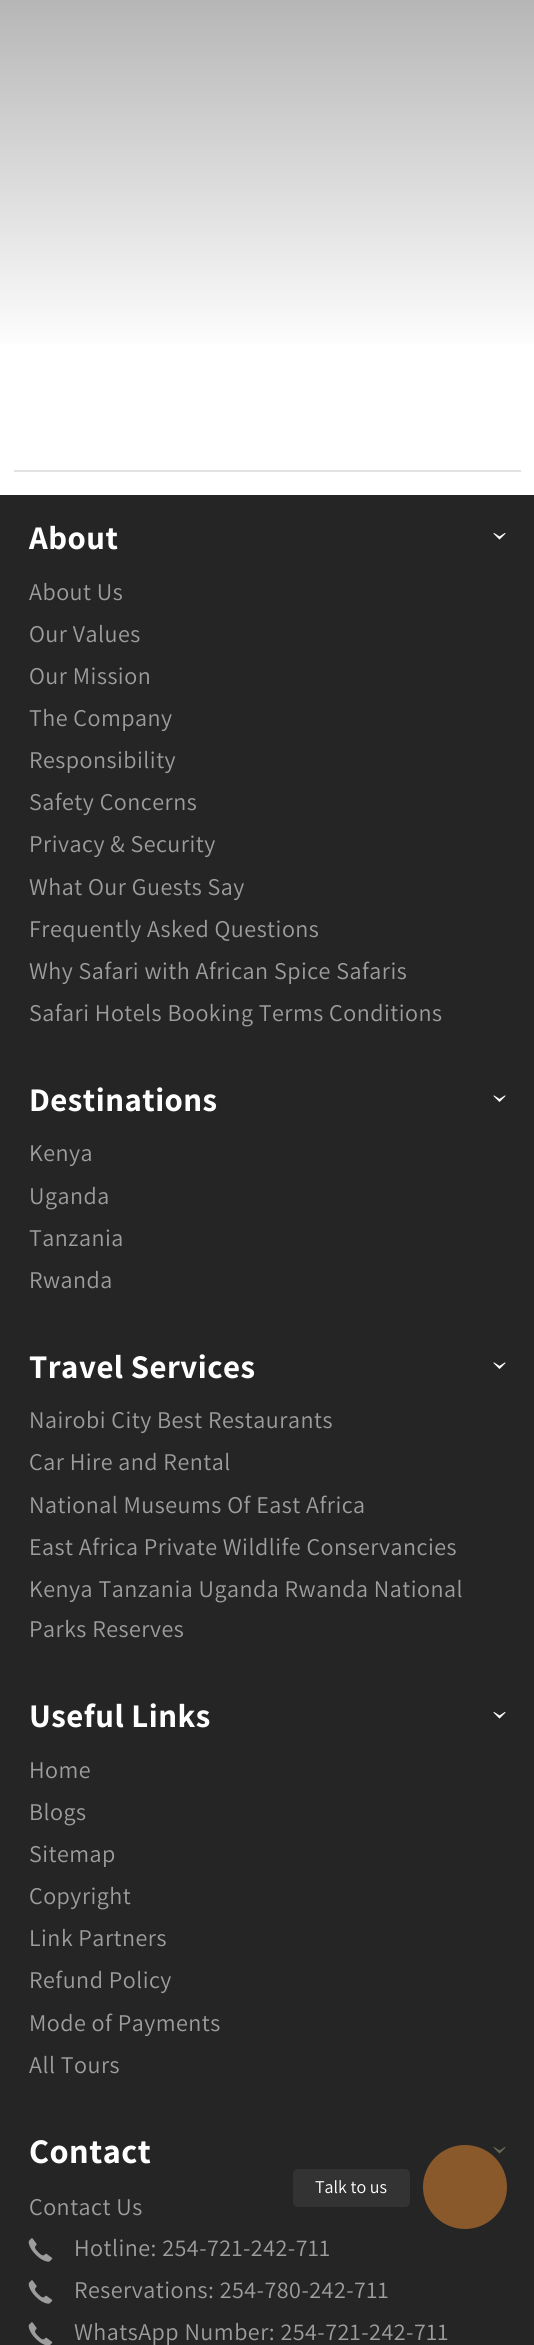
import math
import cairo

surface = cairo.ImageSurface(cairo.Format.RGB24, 534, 2345)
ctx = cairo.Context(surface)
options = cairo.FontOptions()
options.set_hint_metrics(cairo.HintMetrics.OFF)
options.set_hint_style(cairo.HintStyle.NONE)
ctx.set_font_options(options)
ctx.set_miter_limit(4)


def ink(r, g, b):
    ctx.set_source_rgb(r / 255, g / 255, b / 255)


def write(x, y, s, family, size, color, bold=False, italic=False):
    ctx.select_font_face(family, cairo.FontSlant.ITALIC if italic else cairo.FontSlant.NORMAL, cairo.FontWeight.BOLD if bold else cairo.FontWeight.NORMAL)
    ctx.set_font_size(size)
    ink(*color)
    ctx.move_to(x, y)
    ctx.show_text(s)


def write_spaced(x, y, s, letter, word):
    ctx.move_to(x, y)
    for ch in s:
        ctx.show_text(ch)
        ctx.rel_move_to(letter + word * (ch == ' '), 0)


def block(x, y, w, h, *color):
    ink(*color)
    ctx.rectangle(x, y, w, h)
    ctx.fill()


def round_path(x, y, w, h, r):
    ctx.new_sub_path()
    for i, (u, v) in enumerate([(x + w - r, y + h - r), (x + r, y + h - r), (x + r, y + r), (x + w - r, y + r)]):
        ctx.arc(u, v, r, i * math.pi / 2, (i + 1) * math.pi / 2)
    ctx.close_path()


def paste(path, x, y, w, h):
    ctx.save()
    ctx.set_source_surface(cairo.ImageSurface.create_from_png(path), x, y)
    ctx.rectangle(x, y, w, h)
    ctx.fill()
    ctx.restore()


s1 = dict(family="Assistant ExtraLight", size=18, color=(255, 255, 255))

ink(255, 255, 255)
ctx.paint()
gradient = cairo.LinearGradient(267, 356, 267, -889)
gradient.add_color_stop_rgba(0, 1, 1, 1, 1)
gradient.add_color_stop_rgba(1, 0, 0, 0, 1)
ctx.set_source(gradient)
ctx.rectangle(0, 0, 534, 344)
ctx.fill()
block(14, 470, 507, 2, 226, 226, 226)
block(0, 495, 534, 1850, 37, 37, 37)
ctx.select_font_face("Assistant", cairo.FontSlant.NORMAL, cairo.FontWeight.BOLD)
ctx.set_font_size(33)
ink(255, 255, 255)
write_spaced(29, 549, "About", 0.5, 0)
paste("pic1.png", 493, 533, 13, 7)
ctx.select_font_face("Assistant ExtraLight")
ctx.set_font_size(24)
ink(157, 157, 157)
write_spaced(29, 600, "About Us", 0.5, 0)
write_spaced(29, 642, "Our Values", 0.5, 0)
write_spaced(29, 684, "Our Mission", 0.5, 0)
write_spaced(29, 726, "The Company", 0.5, 0)
write_spaced(29, 768, "Responsibility", 0.5, 0)
write_spaced(29, 810, "Safety Concerns", 0.5, 0)
write_spaced(29, 852, "Privacy & Security", 0.5, 0)
write_spaced(29, 895, "What Our Guests Say", 0.5, 0)
write_spaced(29, 937, "Frequently Asked Questions", 0.5, 0)
write_spaced(29, 979, "Why Safari with African Spice Safaris", 0.5, 0)
write_spaced(29, 1021, "Safari Hotels Booking Terms Conditions", 0.5, 0)
ctx.select_font_face("Assistant", cairo.FontSlant.NORMAL, cairo.FontWeight.BOLD)
ctx.set_font_size(33)
ink(255, 255, 255)
write_spaced(29, 1111, "Destinations", 0.5, 0)
paste("pic2.png", 493, 1095, 13, 7)
ctx.select_font_face("Assistant ExtraLight")
ctx.set_font_size(24)
ink(157, 157, 157)
write_spaced(29, 1161, "Kenya", 0.5, 0)
write_spaced(29, 1204, "Uganda", 0.5, 0)
write_spaced(29, 1246, "Tanzania", 0.5, 0)
write_spaced(29, 1288, "Rwanda", 0.5, 0)
ctx.select_font_face("Assistant", cairo.FontSlant.NORMAL, cairo.FontWeight.BOLD)
ctx.set_font_size(33)
ink(255, 255, 255)
write_spaced(29, 1378, "Travel Services", 0.5, 0)
paste("pic2.png", 493, 1362, 13, 7)
ctx.select_font_face("Assistant ExtraLight")
ctx.set_font_size(24)
ink(157, 157, 157)
write_spaced(29, 1428, "Nairobi City Best Restaurants", 0.5, 0)
write_spaced(29, 1470, "Car Hire and Rental", 0.5, 0)
write_spaced(29, 1513, "National Museums Of East Africa", 0.5, 0)
write_spaced(29, 1555, "East Africa Private Wildlife Conservancies", 0.5, 0)
write_spaced(29, 1597, "Kenya Tanzania Uganda Rwanda National", 0.5, 0)
write_spaced(29, 1637, "Parks Reserves", 0.5, 0)
ctx.select_font_face("Assistant", cairo.FontSlant.NORMAL, cairo.FontWeight.BOLD)
ctx.set_font_size(33)
ink(255, 255, 255)
write_spaced(29, 1727, "Useful Links", 0.5, 0)
paste("pic1.png", 493, 1712, 13, 7)
ctx.select_font_face("Assistant ExtraLight")
ctx.set_font_size(24)
ink(157, 157, 157)
write_spaced(29, 1778, "Home", 0.5, 0)
write_spaced(29, 1820, "Blogs", 0.5, 0)
write_spaced(29, 1862, "Sitemap", 0.5, 0)
write_spaced(29, 1904, "Copyright", 0.5, 0)
write_spaced(29, 1946, "Link Partners", 0.5, 0)
write_spaced(29, 1988, "Refund Policy", 0.5, 0)
write_spaced(29, 2031, "Mode of Payments", 0.5, 0)
write_spaced(29, 2073, "All Tours", 0.5, 0)
ctx.select_font_face("Assistant", cairo.FontSlant.NORMAL, cairo.FontWeight.BOLD)
ctx.set_font_size(34.5)
ink(255, 255, 255)
write_spaced(29, 2163, "Contact", 0.5, 0)
paste("pic3.png", 493, 2147, 13, 7)
ctx.select_font_face("Assistant ExtraLight")
ctx.set_font_size(24)
ink(157, 157, 157)
write_spaced(29, 2215, "Contact Us", 0.5, 0)
paste("pic4.png", 28, 2238, 25, 24)
write_spaced(74, 2256, "Hotline: 254-721-242-711", 0.5, 0)
paste("pic4.png", 28, 2280, 25, 24)
write_spaced(74, 2298, "Reservations: 254-780-242-711", 0.5, 0)
paste("pic5.png", 28, 2322, 25, 23)
write_spaced(74, 2340, "WhatsApp Number: 254-721-242-711", 0.5, 0)
ink(138, 89, 43)
ctx.new_path()
ctx.arc(465, 2187, 42, 0, 2 * math.pi)
ctx.fill()
ink(51, 51, 51)
round_path(293, 2169, 117, 38, 5)
ctx.fill()
write(315, 2193, "Talk to us", **s1)
surface.write_to_png("screenshot.png")
